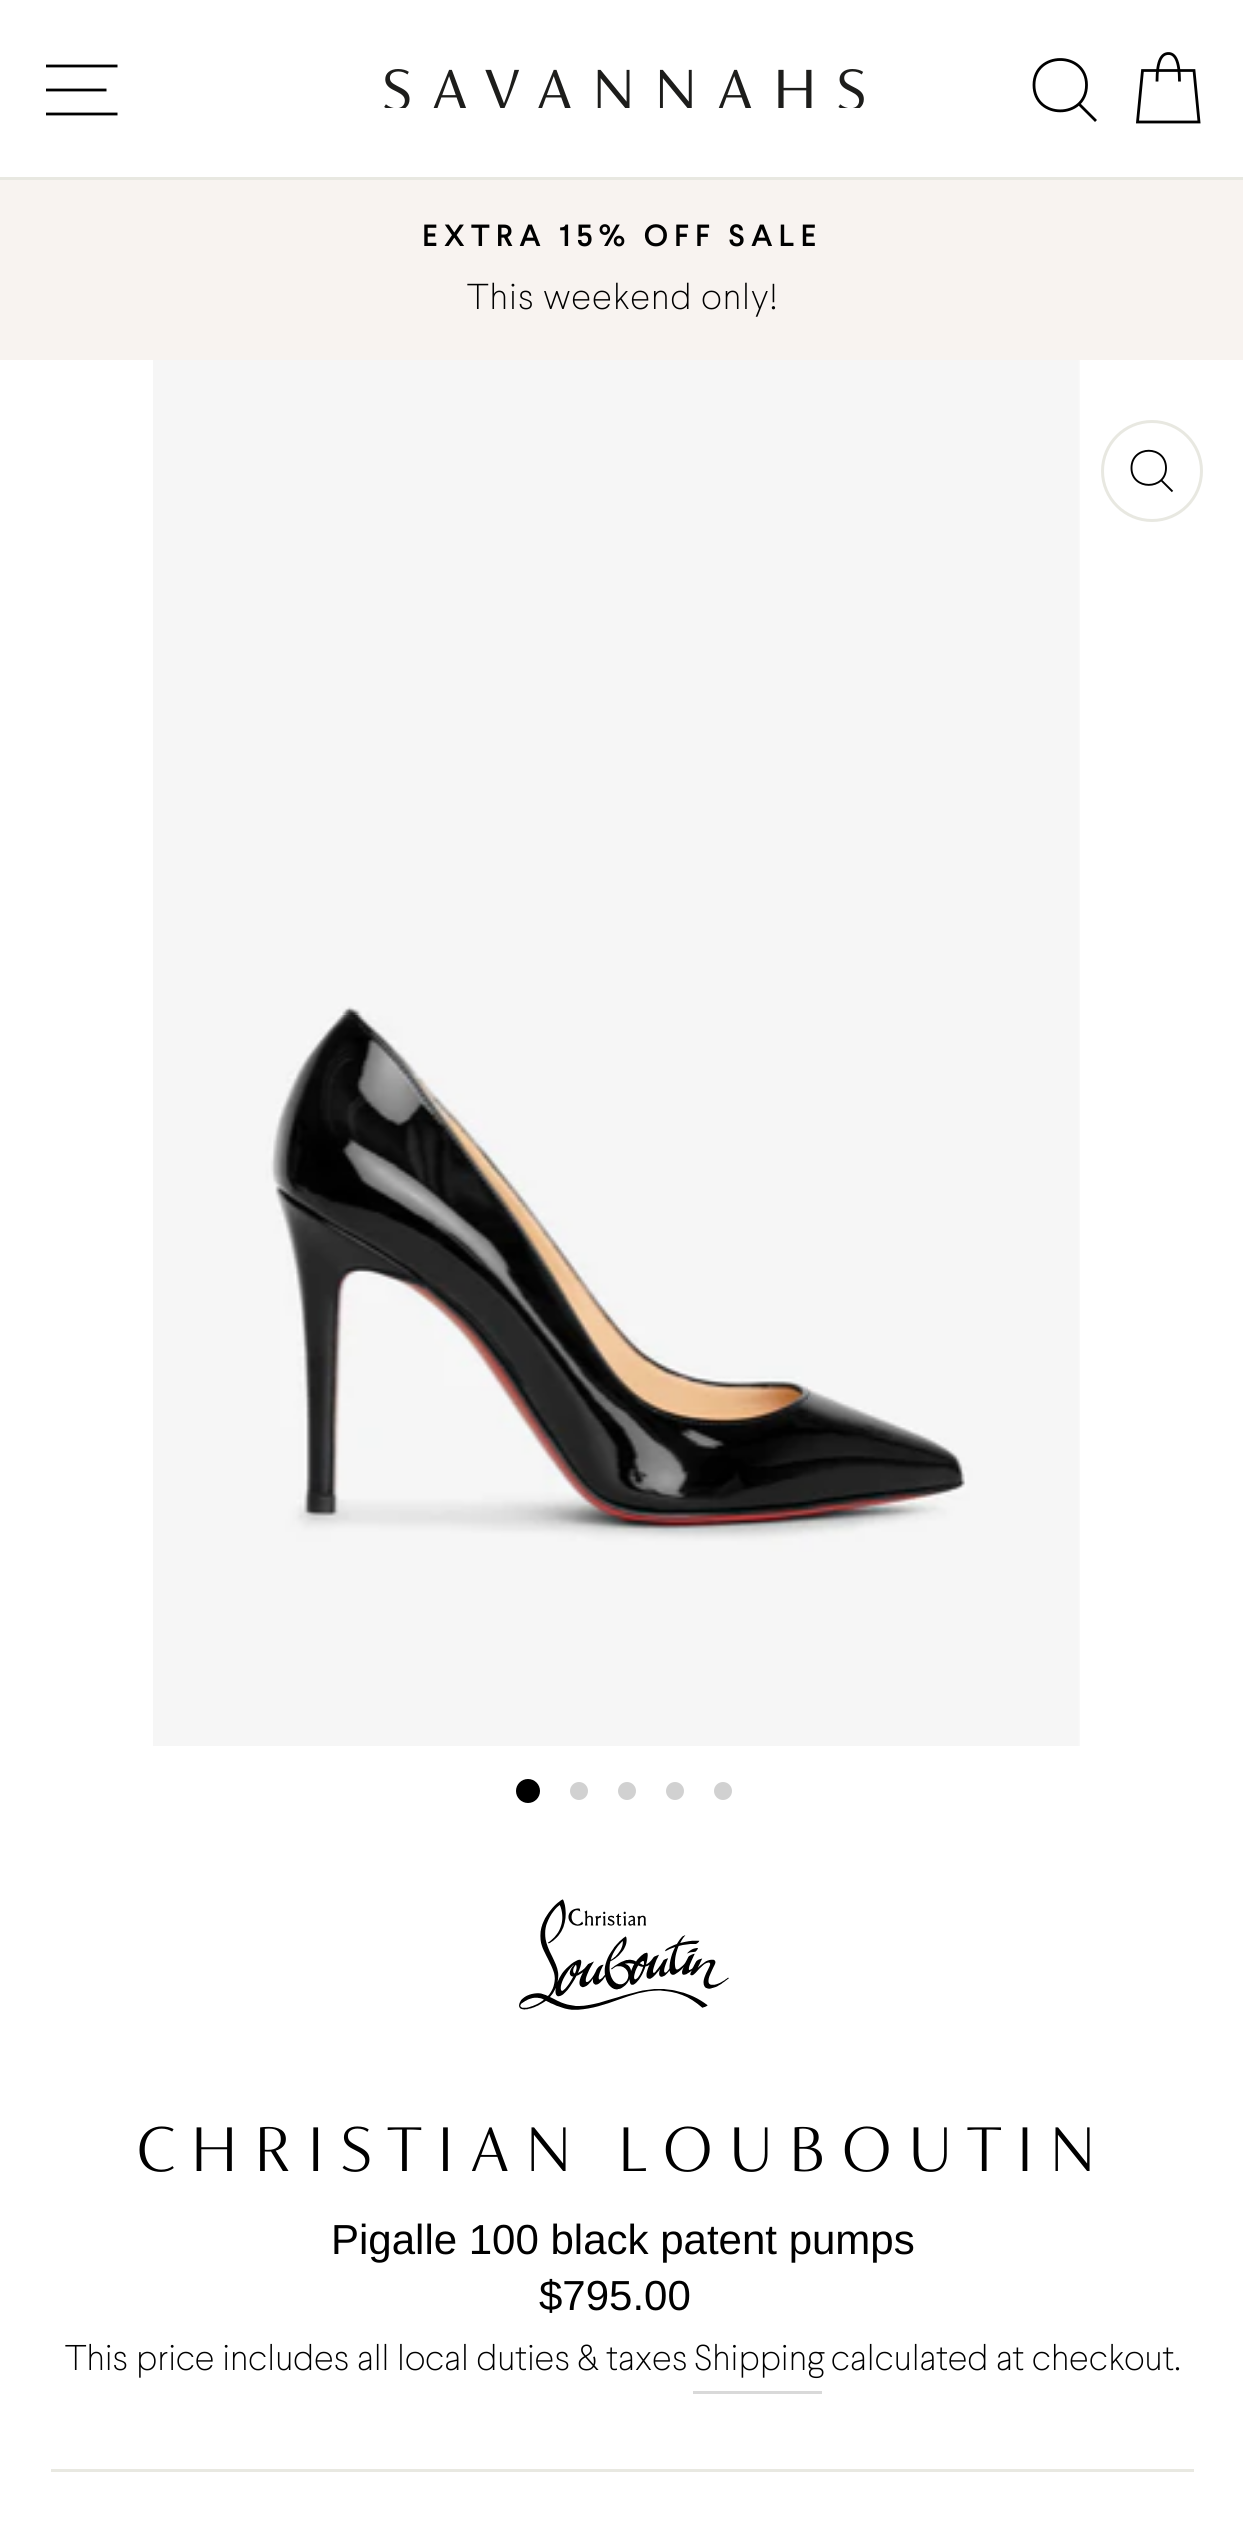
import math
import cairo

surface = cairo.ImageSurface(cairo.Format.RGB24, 1243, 2537)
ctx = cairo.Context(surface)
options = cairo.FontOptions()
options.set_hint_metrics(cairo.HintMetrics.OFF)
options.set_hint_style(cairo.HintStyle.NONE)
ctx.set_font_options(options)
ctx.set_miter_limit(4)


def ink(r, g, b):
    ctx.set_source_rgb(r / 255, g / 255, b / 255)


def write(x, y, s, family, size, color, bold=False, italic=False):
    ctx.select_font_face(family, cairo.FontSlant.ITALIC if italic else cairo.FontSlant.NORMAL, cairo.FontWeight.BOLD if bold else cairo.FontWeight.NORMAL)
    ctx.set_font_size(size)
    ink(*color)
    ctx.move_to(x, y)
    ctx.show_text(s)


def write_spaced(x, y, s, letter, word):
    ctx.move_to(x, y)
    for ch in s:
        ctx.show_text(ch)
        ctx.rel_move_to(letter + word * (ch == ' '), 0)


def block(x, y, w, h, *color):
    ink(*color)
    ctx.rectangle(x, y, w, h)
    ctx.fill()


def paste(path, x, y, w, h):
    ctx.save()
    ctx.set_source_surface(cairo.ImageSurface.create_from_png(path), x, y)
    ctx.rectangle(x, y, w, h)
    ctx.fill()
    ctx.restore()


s1 = dict(family="Liberation Sans", size=42, color=(0, 0, 0))
s2 = dict(family="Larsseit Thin", size=35.75, color=(0, 0, 0))

ink(255, 255, 255)
ctx.paint()
block(0, 177, 1243, 3, 232, 232, 225)
ctx.new_path()
ctx.move_to(46, 66)
ctx.line_to(117.5, 66)
ctx.move_to(46, 90)
ctx.line_to(106.5, 90)
ctx.move_to(46, 114)
ctx.line_to(117.5, 114)
ink(0, 0, 0)
ctx.set_line_width(2.8)
ctx.stroke()
paste("pic1.png", 384, 69, 480, 39)
ctx.new_path()
ctx.move_to(1086.5, 85)
ctx.curve_to(1086.5, 119.5, 1034, 119.5, 1034, 85)
ctx.curve_to(1034, 51, 1086.5, 51, 1086.5, 85)
ctx.close_path()
ctx.move_to(1096, 121)
ctx.line_to(1079, 104)
ctx.stroke()
ctx.new_path()
ctx.move_to(1157, 81.5)
ctx.curve_to(1157, 59.5, 1162, 53.5, 1168.5, 53.5)
ctx.curve_to(1174.5, 53.5, 1179.5, 59.5, 1179.5, 81.5)
ctx.stroke()
ctx.new_path()
ctx.move_to(1142.5, 70.5)
ctx.line_to(1194, 70.5)
ctx.line_to(1199, 122)
ctx.line_to(1137.5, 122)
ctx.close_path()
ctx.stroke()
block(0, 180, 1243, 180, 248, 243, 240)
ctx.select_font_face("Larsseit Medium")
ctx.set_font_size(30.6)
ink(0, 0, 0)
write_spaced(422, 246, "EXTRA 15% OFF SALE", 6.1, 0)
ctx.select_font_face("Larsseit Thin")
ctx.set_font_size(36)
write_spaced(467, 309, "This weekend only!", 1, 0)
paste("pic2.png", 153, 360, 927, 1386)
ctx.arc(1152, 471, 49.5, 0, 2 * math.pi)
ink(232, 232, 225)
ctx.set_line_width(3)
ctx.stroke()
ctx.new_path()
ctx.move_to(1166, 468)
ctx.curve_to(1166, 490.5, 1131.5, 490.5, 1131.5, 468)
ctx.curve_to(1131.5, 445, 1166, 445, 1166, 468)
ctx.close_path()
ctx.move_to(1172.5, 491.5)
ctx.line_to(1161.5, 480.5)
ink(0, 0, 0)
ctx.set_line_width(1.9)
ctx.stroke()
ctx.arc(528, 1791, 12, 0, 2 * math.pi)
ctx.fill()
ink(209, 209, 209)
ctx.arc(579, 1791, 9, 0, 2 * math.pi)
ctx.fill()
ctx.arc(627, 1791, 9, 0, 2 * math.pi)
ctx.fill()
ctx.arc(675, 1791, 9, 0, 2 * math.pi)
ctx.fill()
ctx.arc(723, 1791, 9, 0, 2 * math.pi)
ctx.fill()
paste("pic3.png", 519, 1899, 210, 111)
ctx.select_font_face("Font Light")
ctx.set_font_size(71.4)
ink(0, 0, 0)
write_spaced(135, 2171, "CHRISTIAN LOUBOUTIN", 14.25, 0)
write(331, 2254, "Pigalle 100 black patent pumps", **s1)
write(539, 2310, "$795.00", **s1)
write(65, 2370, "This price includes all local duties & taxes", **s2)
block(693, 2391, 129, 3, 217, 217, 217)
write(694, 2370, "Shipping", **s2)
write(831, 2370, "calculated at checkout.", **s2)
block(51, 2469, 1143, 3, 232, 232, 225)
surface.write_to_png("screenshot.png")
